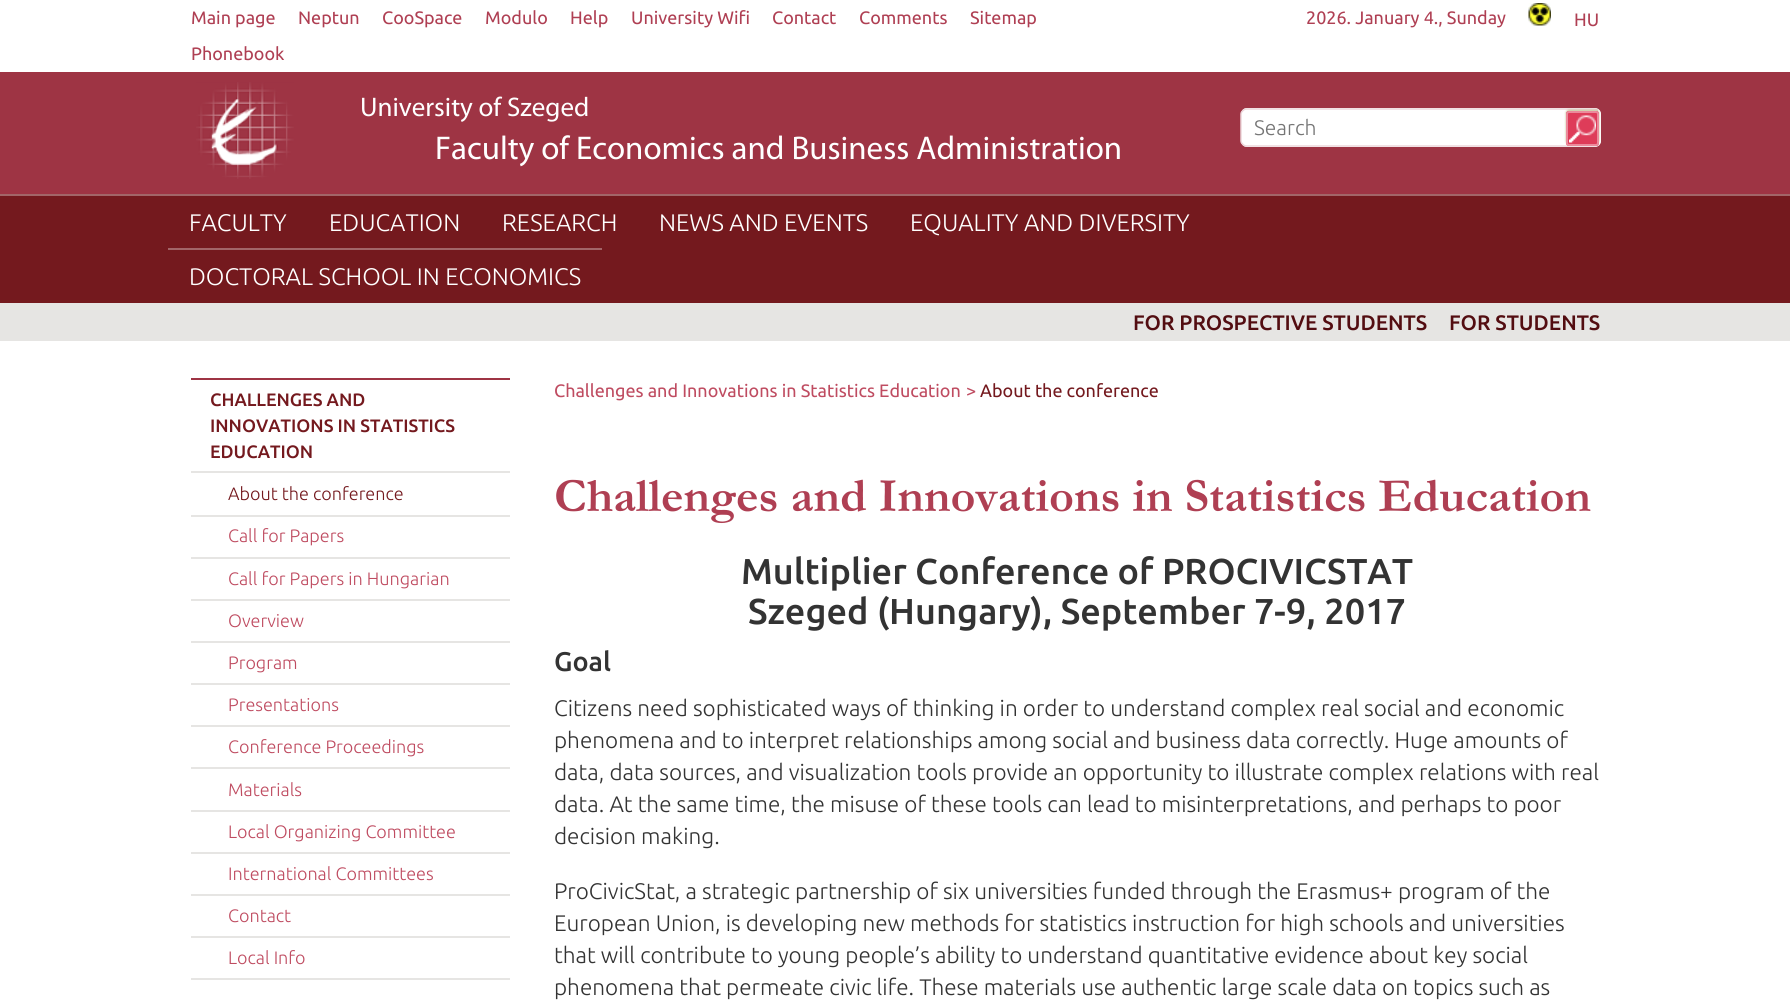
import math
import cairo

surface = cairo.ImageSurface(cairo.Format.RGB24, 1790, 1002)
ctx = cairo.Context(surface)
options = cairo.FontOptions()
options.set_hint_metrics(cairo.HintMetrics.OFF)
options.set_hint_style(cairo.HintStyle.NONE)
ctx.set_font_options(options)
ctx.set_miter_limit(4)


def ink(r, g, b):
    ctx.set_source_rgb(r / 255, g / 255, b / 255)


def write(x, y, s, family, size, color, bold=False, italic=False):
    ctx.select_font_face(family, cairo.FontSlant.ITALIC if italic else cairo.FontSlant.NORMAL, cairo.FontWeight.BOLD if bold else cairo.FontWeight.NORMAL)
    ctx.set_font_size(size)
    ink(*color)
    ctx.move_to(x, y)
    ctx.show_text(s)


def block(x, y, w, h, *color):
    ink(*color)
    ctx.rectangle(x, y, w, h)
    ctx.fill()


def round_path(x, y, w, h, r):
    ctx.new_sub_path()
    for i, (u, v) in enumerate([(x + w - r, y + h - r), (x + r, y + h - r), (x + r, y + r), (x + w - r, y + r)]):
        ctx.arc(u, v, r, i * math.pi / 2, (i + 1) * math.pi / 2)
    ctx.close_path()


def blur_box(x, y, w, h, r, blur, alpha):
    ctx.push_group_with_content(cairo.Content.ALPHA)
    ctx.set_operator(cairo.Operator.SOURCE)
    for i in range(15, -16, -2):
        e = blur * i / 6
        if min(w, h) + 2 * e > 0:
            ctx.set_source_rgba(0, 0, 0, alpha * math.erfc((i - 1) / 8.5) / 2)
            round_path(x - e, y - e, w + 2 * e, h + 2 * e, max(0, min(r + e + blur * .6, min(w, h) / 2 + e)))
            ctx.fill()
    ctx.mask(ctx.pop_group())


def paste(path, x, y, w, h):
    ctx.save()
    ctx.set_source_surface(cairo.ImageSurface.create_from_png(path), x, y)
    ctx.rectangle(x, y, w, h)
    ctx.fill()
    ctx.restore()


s1 = dict(family="Ubuntu", size=18, color=(175, 63, 83))
s2 = dict(family="Myriad", size=27, color=(255, 255, 255))
s3 = dict(family="Myriad", size=33, color=(255, 255, 255))
s4 = dict(family="Ubuntu Light", size=21, color=(117, 117, 117))
s5 = dict(family="Ubuntu Light", size=24, color=(255, 255, 255))
s6 = dict(family="Ubuntu Medium", size=21, color=(83, 13, 17))
s7 = dict(family="Ubuntu Medium", size=18, color=(116, 25, 30))
s8 = dict(family="Ubuntu Light", size=18, color=(116, 25, 30))
s9 = dict(family="Ubuntu Light", size=18, color=(191, 76, 97))
s10 = dict(family="Ubuntu", size=18, color=(191, 76, 97))
s11 = dict(family="Ubuntu", size=18, color=(116, 25, 30))
s12 = dict(family="Garamond", size=48, color=(175, 63, 83), bold=True)
s13 = dict(family="Ubuntu Medium", size=36, color=(51, 51, 51))
s14 = dict(family="Ubuntu Medium", size=27, color=(51, 51, 51))
s15 = dict(family="Ubuntu Light", size=22.5, color=(51, 51, 51))

ink(255, 255, 255)
ctx.paint()
write(191, 24, "Main page", **s1)
write(298, 24, "Neptun", **s1)
write(382, 24, "CooSpace", **s1)
write(485, 24, "Modulo", **s1)
write(570, 24, "Help", **s1)
write(631, 24, "University Wifi", **s1)
write(772, 24, "Contact", **s1)
write(859, 24, "Comments", **s1)
write(970, 24, "Sitemap", **s1)
write(191, 60, "Phonebook", **s1)
write(1306, 24, "2026. January 4., Sunday", **s1)
paste("pic1.png", 1528, 3, 23, 23)
write(1574, 26, "HU", **s1)
block(0, 72, 1790, 122, 158, 52, 68)
paste("pic2.png", 196, 82, 98, 97)
write(360, 116, "University of Szeged", **s2)
write(435, 159, "Faculty of Economics and Business Administration", **s3)
round_path(1241, 108, 360, 39, 6)
ctx.fill()
ctx.new_path()
ctx.move_to(1598, 110.5)
ctx.curve_to(1599, 111.5, 1600, 112.5, 1600, 114)
ctx.line_to(1600, 141)
ctx.curve_to(1600, 142.5, 1599, 143.5, 1598, 144.5)
ctx.set_line_width(1.5)
ctx.stroke()
ctx.new_path()
ctx.move_to(1598, 144.5)
ctx.curve_to(1597, 145.5, 1596, 146, 1594.5, 146)
ctx.line_to(1246.5, 146)
ctx.curve_to(1245, 146, 1244, 145.5, 1243, 144.5)
ctx.curve_to(1242, 143.5, 1241, 142.5, 1241, 141)
ctx.line_to(1241, 114)
ctx.curve_to(1241, 112.5, 1242, 111.5, 1243, 110.5)
ctx.curve_to(1244, 109.5, 1245, 109, 1246.5, 109)
ctx.line_to(1594.5, 109)
ctx.curve_to(1596, 109, 1597, 109.5, 1598, 110.5)
ink(236, 214, 218)
ctx.stroke()
write(1254, 135, "Search", **s4)
ink(132, 122, 28)
blur_box(1566, 110, 33, 34, 3, 1, 0.5)
ink(222, 60, 89)
round_path(1566, 111, 33, 35, 3)
ctx.fill()
paste("pic3.png", 1569, 115, 27, 28)
round_path(1567, 112, 31, 33, 2)
ink(235, 138, 155)
ctx.set_line_width(2)
ctx.stroke()
block(0, 196, 1790, 107, 116, 25, 30)
block(0, 194, 1790, 2, 162, 101, 104)
write(189, 231, "FACULTY", **s5)
write(329, 231, "EDUCATION", **s5)
write(502, 231, "RESEARCH", **s5)
write(659, 231, "NEWS AND EVENTS", **s5)
write(910, 231, "EQUALITY AND DIVERSITY", **s5)
block(168, 248, 434, 2, 162, 101, 104)
write(189, 285, "DOCTORAL SCHOOL IN ECONOMICS", **s5)
block(0, 303, 1790, 38, 230, 229, 227)
write(1133, 330, "FOR PROSPECTIVE STUDENTS", **s6)
write(1449, 330, "FOR STUDENTS", **s6)
block(191, 378, 319, 2, 158, 52, 68)
write(210, 406, "CHALLENGES AND", **s7)
write(210, 432, "INNOVATIONS IN STATISTICS", **s7)
write(210, 458, "EDUCATION", **s7)
block(191, 471, 319, 2, 230, 229, 227)
write(228, 500, "About the conference", **s8)
block(191, 515, 319, 2, 230, 229, 227)
write(228, 542, "Call for Papers", **s9)
block(191, 557, 319, 2, 230, 229, 227)
write(228, 585, "Call for Papers in Hungarian", **s9)
block(191, 599, 319, 2, 230, 229, 227)
write(228, 627, "Overview", **s9)
block(191, 641, 319, 2, 230, 229, 227)
write(228, 669, "Program", **s9)
block(191, 683, 319, 2, 230, 229, 227)
write(228, 711, "Presentations", **s9)
block(191, 725, 319, 2, 230, 229, 227)
write(228, 753, "Conference Proceedings", **s9)
block(191, 767, 319, 2, 230, 229, 227)
write(228, 796, "Materials", **s9)
block(191, 810, 319, 2, 230, 229, 227)
write(228, 838, "Local Organizing Committee", **s9)
block(191, 852, 319, 2, 230, 229, 227)
write(228, 880, "International Committees", **s9)
block(191, 894, 319, 2, 230, 229, 227)
write(228, 922, "Contact", **s9)
block(191, 936, 319, 2, 230, 229, 227)
write(228, 964, "Local Info", **s9)
block(191, 978, 319, 2, 230, 229, 227)
write(554, 397, "Challenges and Innovations in Statistics Education", **s10)
write(966, 397, ">", **s10)
write(980, 397, "About the conference", **s11)
write(554, 511, "Challenges and Innovations in Statistics Education", **s12)
write(741, 584, "Multiplier Conference of PROCIVICSTAT", **s13)
write(748, 624, "Szeged (Hungary), September 7-9, 2017", **s13)
write(554, 671, "Goal", **s14)
write(554, 716, "Citizens need sophisticated ways of thinking in order to understand complex real social and economic", **s15)
write(554, 748, "phenomena and to interpret relationships among social and business data correctly. Huge amounts of", **s15)
write(554, 780, "data, data sources, and visualization tools provide an opportunity to illustrate complex relations with real", **s15)
write(554, 812, "data. At the same time, the misuse of these tools can lead to misinterpretations, and perhaps to poor", **s15)
write(554, 844, "decision making.", **s15)
write(554, 899, "ProCivicStat, a strategic partnership of six universities funded through the Erasmus+ program of the", **s15)
write(554, 931, "European Union, is developing new methods for statistics instruction for high schools and universities", **s15)
write(554, 963, "that will contribute to young people’s ability to understand quantitative evidence about key social", **s15)
write(554, 995, "phenomena that permeate civic life. These materials use authentic large scale data on topics such as", **s15)
surface.write_to_png("screenshot.png")
